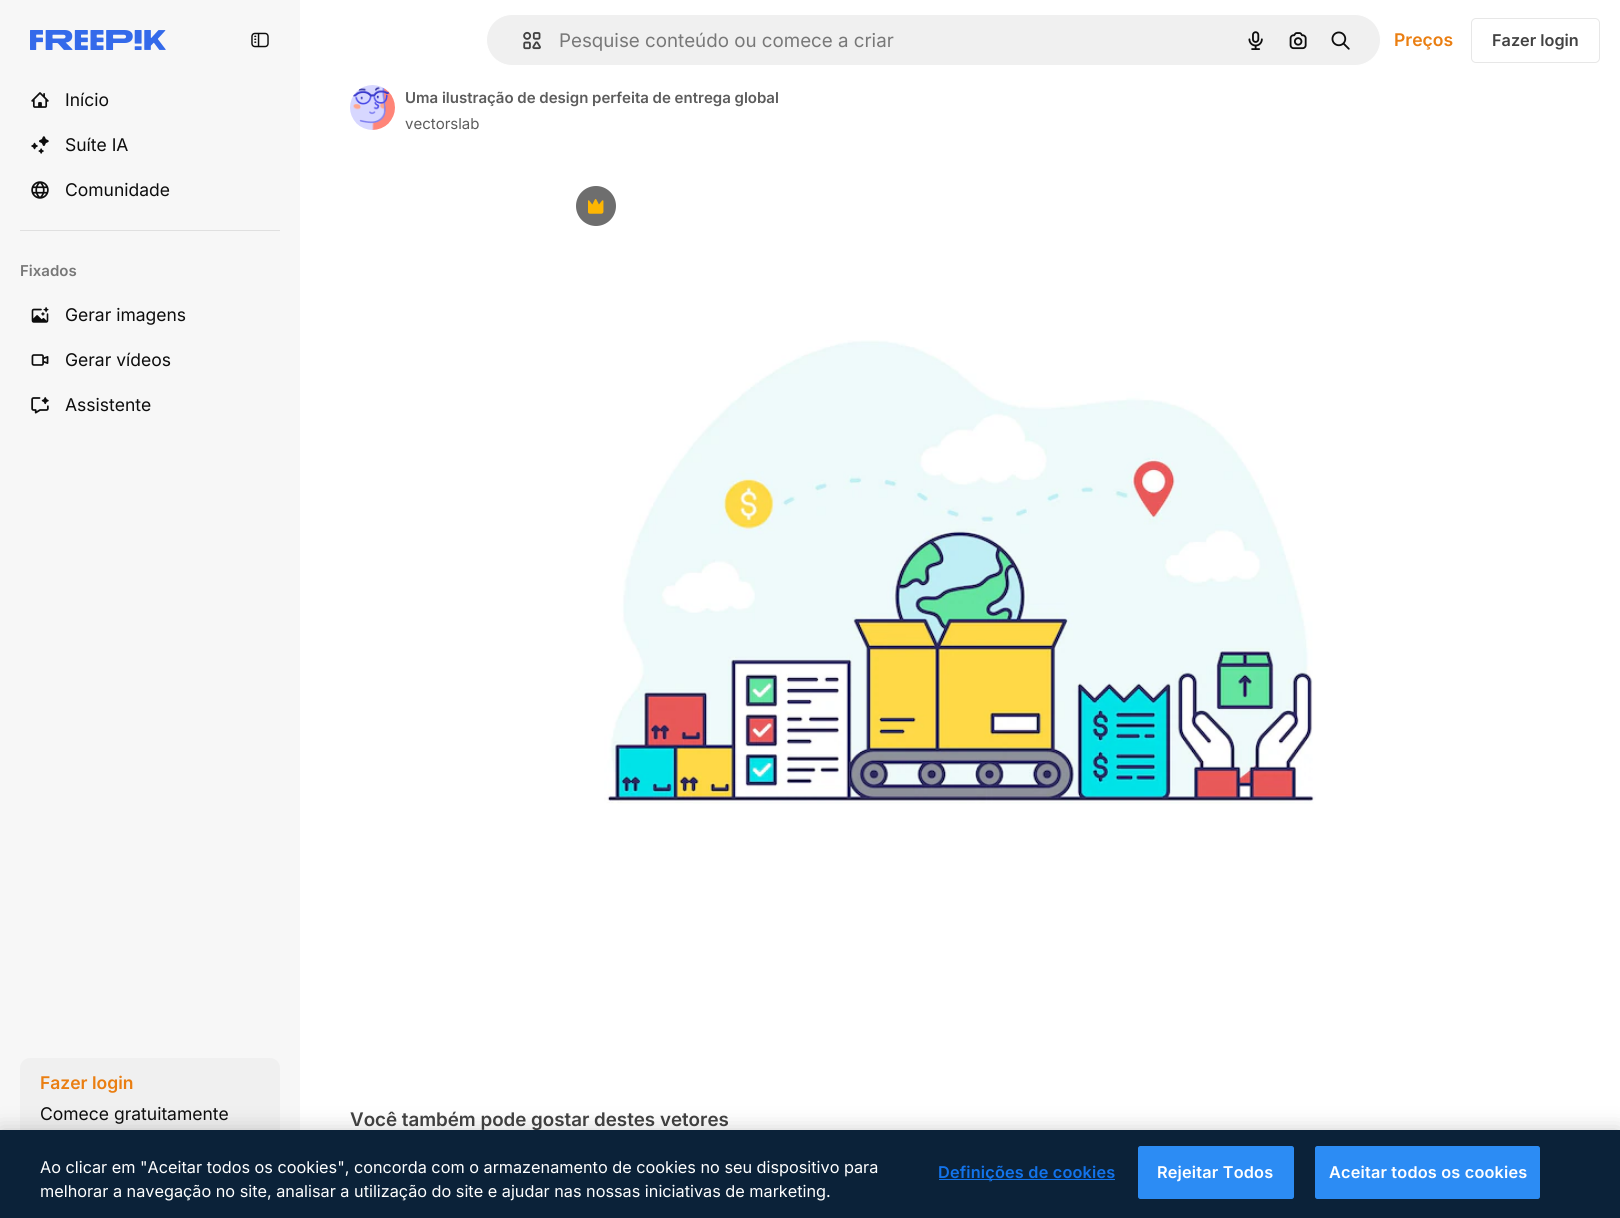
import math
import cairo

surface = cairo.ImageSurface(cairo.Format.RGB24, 1620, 1218)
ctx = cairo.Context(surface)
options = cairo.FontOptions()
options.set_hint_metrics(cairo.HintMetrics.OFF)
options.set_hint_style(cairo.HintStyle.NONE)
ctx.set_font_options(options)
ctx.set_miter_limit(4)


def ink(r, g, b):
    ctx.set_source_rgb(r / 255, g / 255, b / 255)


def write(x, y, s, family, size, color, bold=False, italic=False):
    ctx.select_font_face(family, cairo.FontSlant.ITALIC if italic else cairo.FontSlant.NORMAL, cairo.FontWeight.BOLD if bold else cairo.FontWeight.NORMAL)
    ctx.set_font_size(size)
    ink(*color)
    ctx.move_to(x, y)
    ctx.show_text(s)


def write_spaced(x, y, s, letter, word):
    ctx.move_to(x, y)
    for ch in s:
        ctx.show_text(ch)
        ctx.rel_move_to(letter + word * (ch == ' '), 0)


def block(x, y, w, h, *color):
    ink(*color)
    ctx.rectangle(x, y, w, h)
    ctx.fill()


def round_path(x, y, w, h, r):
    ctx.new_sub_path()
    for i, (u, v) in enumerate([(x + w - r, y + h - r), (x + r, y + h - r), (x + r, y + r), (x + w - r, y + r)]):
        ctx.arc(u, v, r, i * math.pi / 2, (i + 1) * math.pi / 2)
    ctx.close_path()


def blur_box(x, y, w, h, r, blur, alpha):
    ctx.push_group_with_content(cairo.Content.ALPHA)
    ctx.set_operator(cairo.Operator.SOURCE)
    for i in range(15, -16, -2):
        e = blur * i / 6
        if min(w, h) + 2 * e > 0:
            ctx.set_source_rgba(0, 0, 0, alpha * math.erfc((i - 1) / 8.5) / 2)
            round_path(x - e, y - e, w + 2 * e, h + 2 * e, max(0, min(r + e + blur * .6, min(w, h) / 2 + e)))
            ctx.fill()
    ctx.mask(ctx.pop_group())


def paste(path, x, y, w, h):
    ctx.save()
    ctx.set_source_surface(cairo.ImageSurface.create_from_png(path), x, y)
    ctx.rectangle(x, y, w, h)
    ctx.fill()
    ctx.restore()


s1 = dict(family="Inter", size=17.5, color=(13, 13, 13))
s2 = dict(family="Inter SemiBold", size=15, color=(120, 120, 120))
s3 = dict(family="Inter SemiBold", size=17.5, color=(234, 126, 17))
s4 = dict(family="Inter", size=18.75, color=(120, 120, 120))
s5 = dict(family="Inter SemiBold", size=16.25, color=(66, 66, 66))
s6 = dict(family="Inter SemiBold", size=15, color=(92, 92, 92))
s7 = dict(family="Inter", size=15, color=(92, 92, 92))
s8 = dict(family="Inter SemiBold", size=18.75, color=(66, 66, 66))
s9 = dict(family="Inter", size=16.25, color=(255, 255, 255))

ink(255, 255, 255)
ctx.paint()
block(0, 0, 300, 1130, 247, 247, 247)
paste("pic1.png", 30, 30, 136, 20)
paste("pic2.png", 251, 32, 18, 16)
paste("pic3.png", 31, 92, 18, 16)
write(65, 106, "Início", **s1)
paste("pic4.png", 31, 136, 18, 18)
write(65, 151, "Suíte IA", **s1)
paste("pic5.png", 31, 181, 18, 18)
write(65, 196, "Comunidade", **s1)
block(20, 230, 260, 1, 224, 224, 224)
write(20, 276, "Fixados", **s2)
paste("pic6.png", 31, 307, 18, 16)
write(65, 321, "Gerar imagens", **s1)
paste("pic7.png", 31, 354, 18, 12)
write(65, 366, "Gerar vídeos", **s1)
paste("pic8.png", 31, 397, 18, 17)
write(65, 411, "Assistente", **s1)
ink(240, 240, 240)
round_path(20, 1058, 260, 81, 10)
ctx.fill()
write(40, 1089, "Fazer login", **s3)
write(40, 1120, "Comece gratuitamente", **s1)
ink(240, 240, 240)
round_path(486.5, 14.5, 894, 51, 25.5)
ctx.fill_preserve()
ink(255, 255, 255)
ctx.set_line_width(1)
ctx.stroke()
paste("pic9.png", 523, 31, 18, 19)
write(559, 47, "Pesquise conteúdo ou comece a criar", **s4)
paste("pic10.png", 1248, 31, 15, 19)
paste("pic11.png", 1289, 32, 18, 18)
paste("pic12.png", 1331, 31, 19, 19)
write(1394, 46, "Preços", **s3)
round_path(1471.5, 18.5, 128, 44, 4.5)
ink(231, 231, 231)
ctx.stroke()
write(1492, 46, "Fazer login", **s5)
paste("pic13.png", 350, 85, 45, 45)
write(405, 103, "Uma ilustração de design perfeita de entrega global", **s6)
write(405, 129, "vectorslab", **s7)
ink(110, 110, 110)
ctx.new_path()
ctx.arc(596, 206, 20, 0, 2 * math.pi)
ctx.fill()
paste("pic14.png", 588, 199, 16, 15)
paste("pic15.png", 604, 340, 712, 464)
write(350, 1126, "Você também pode gostar destes vetores", **s8)
ink(0, 0, 0)
blur_box(0, 1130, 1620, 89, 0, 11, 0.2)
block(0, 1130, 1620, 88, 11, 34, 57)
write(40, 1173, "Ao clicar em \"Aceitar todos os cookies\", concorda com o armazenamento de cookies no seu dispositivo para", **s9)
write(40, 1197, "melhorar a navegação no site, analisar a utilização do site e ajudar nas nossas iniciativas de marketing.", **s9)
block(939, 1179, 176, 1, 18, 115, 235)
ctx.select_font_face("Inter SemiBold")
write_spaced(938, 1178, "Definições de cookies", 0.2, 0)
ink(44, 140, 244)
round_path(1138.5, 1146.5, 155, 52, 2)
ctx.fill_preserve()
ctx.stroke()
ink(255, 255, 255)
write_spaced(1157, 1178, "Rejeitar Todos", 0.2, 0)
ink(44, 140, 244)
round_path(1315.5, 1146.5, 224, 52, 2)
ctx.fill_preserve()
ctx.stroke()
ink(255, 255, 255)
write_spaced(1329, 1178, "Aceitar todos os cookies", 0.2, 0)
surface.write_to_png("screenshot.png")
